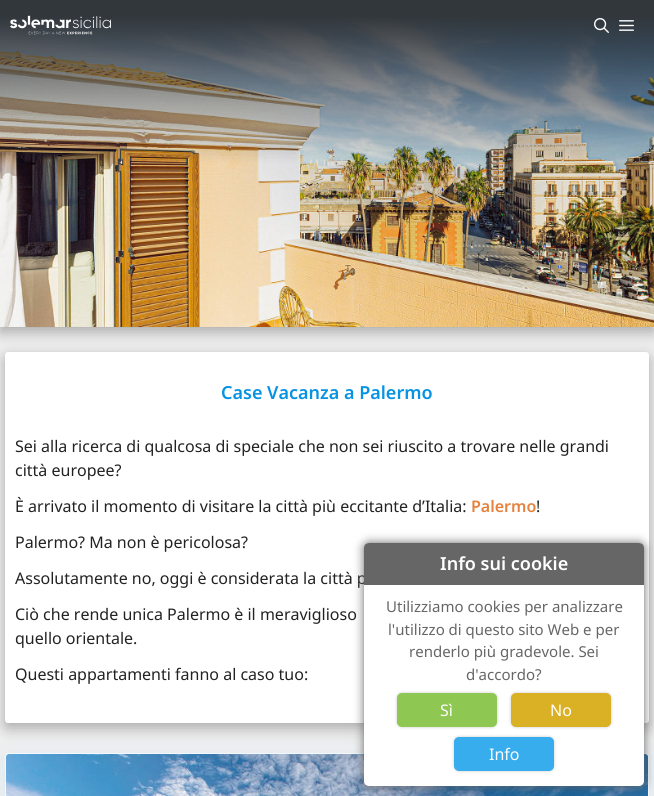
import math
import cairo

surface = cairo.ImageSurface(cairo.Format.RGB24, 654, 796)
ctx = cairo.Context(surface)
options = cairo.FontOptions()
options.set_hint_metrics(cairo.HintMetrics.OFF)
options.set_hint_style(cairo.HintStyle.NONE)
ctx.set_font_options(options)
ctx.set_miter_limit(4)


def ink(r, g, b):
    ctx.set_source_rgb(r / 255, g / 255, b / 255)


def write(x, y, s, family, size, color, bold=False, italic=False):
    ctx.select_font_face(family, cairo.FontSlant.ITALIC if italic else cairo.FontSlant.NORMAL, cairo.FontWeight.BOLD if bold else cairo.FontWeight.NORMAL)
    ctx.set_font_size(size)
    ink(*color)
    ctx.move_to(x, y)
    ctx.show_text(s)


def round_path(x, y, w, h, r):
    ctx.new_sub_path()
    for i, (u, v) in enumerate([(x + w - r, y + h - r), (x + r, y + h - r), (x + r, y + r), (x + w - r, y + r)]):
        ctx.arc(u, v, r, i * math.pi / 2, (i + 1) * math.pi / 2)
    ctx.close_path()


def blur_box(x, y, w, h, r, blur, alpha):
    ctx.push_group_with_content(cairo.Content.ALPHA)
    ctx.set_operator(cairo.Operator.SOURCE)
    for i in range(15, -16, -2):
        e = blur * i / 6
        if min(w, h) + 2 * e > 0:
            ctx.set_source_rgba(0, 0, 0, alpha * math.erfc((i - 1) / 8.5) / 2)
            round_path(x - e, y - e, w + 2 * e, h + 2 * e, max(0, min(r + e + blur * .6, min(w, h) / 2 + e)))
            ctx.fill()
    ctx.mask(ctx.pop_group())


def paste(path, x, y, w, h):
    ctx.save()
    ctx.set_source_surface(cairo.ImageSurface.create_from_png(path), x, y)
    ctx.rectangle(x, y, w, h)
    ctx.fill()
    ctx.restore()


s1 = dict(family="Noto Sans SemiBold", size=18, color=(6, 147, 227))
s2 = dict(family="Noto Sans", size=16, color=(34, 34, 34))
s3 = dict(family="Noto Sans SemiBold", size=16, color=(229, 130, 61))
s4 = dict(family="Noto Sans SemiBold", size=18, color=(255, 255, 255))
s5 = dict(family="Noto Sans", size=15, color=(102, 102, 102))
s6 = dict(family="Noto Sans", size=16, color=(255, 255, 255))

ink(239, 239, 239)
ctx.paint()
ink(0, 0, 0)
blur_box(5, 357, 644, 371, 3, 7.5, 0.3)
ink(255, 255, 255)
round_path(5, 352, 644, 371, 3)
ctx.fill()
ink(0, 0, 0)
blur_box(0, 5, 654, 327, 0, 7.5, 0.3)
paste("pic1.png", 0, 0, 654, 327)
paste("pic2.png", 10, 15, 101, 20)
paste("pic3.png", 594, 18, 15, 15)
paste("pic4.png", 619, 20, 15, 11)
write(221, 399, "Case Vacanza a Palermo", **s1)
write(15, 452, "Sei alla ricerca di qualcosa di speciale che non sei riuscito a trovare nelle grandi", **s2)
write(15, 476, "città europee?", **s2)
write(15, 512, "È arrivato il momento di visitare la città più eccitante d’Italia:", **s2)
write(471, 512, "Palermo", **s3)
write(536, 512, "!", **s2)
write(15, 548, "Palermo? Ma non è pericolosa?", **s2)
write(15, 584, "Assolutamente no, oggi è considerata la città p", **s2)
write(15, 620, "Ciò che rende unica Palermo è il meraviglioso", **s2)
write(15, 644, "quello orientale.", **s2)
write(15, 680, "Questi appartamenti fanno al caso tuo:", **s2)
ink(7, 152, 255)
blur_box(5, 763, 644, 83, 3, 15.5, 0.09)
ink(255, 255, 255)
round_path(5.5, 753.5, 643, 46, 2.5)
ctx.fill_preserve()
ink(241, 248, 255)
ctx.set_line_width(1)
ctx.stroke()
paste("pic5.png", 6, 754, 642, 42)
ink(102, 102, 102)
blur_box(364, 543, 280, 243, 5, 5, 1)
ink(255, 255, 255)
round_path(364, 543, 280, 243, 5)
ctx.fill()
ink(102, 102, 102)
ctx.new_path()
ctx.move_to(369, 543)
ctx.line_to(639, 543)
ctx.curve_to(642, 543, 644, 545, 644, 548)
ctx.line_to(644, 585)
ctx.line_to(364, 585)
ctx.line_to(364, 548)
ctx.curve_to(364, 545, 366, 543, 369, 543)
ctx.close_path()
ctx.fill()
write(440, 570, "Info sui cookie", **s4)
write(386, 612, "Utilizziamo cookies per analizzare", **s5)
write(388, 635, "l'utilizzo di questo sito Web e per", **s5)
write(409, 657, "renderlo più gradevole. Sei", **s5)
write(466, 680, "d'accordo?", **s5)
ink(200, 200, 200)
blur_box(397, 693, 100, 34, 5, 1.5, 1)
ink(142, 199, 81)
round_path(397, 693, 100, 34, 5)
ctx.fill()
write(440, 716, "Sì", **s6)
ink(200, 200, 200)
blur_box(511, 693, 100, 34, 5, 1.5, 1)
ink(218, 176, 37)
round_path(511, 693, 100, 34, 5)
ctx.fill()
write(550, 716, "No", **s6)
ink(200, 200, 200)
blur_box(454, 737, 100, 34, 5, 1.5, 1)
ink(55, 173, 237)
round_path(454, 737, 100, 34, 5)
ctx.fill()
write(489, 760, "Info", **s6)
surface.write_to_png("screenshot.png")
